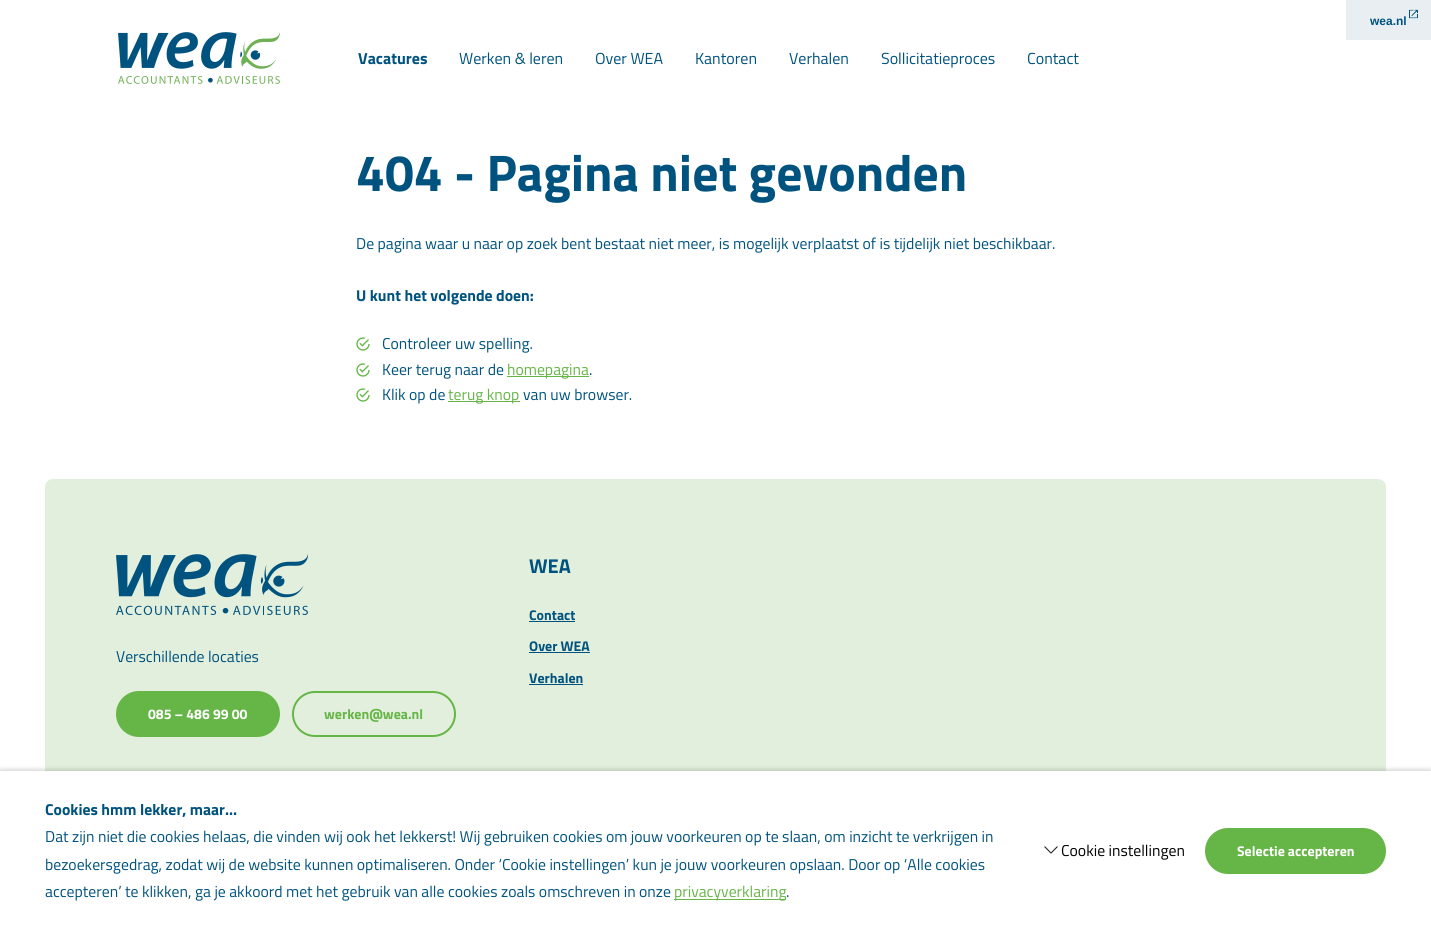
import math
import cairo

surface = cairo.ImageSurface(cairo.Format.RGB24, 1431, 931)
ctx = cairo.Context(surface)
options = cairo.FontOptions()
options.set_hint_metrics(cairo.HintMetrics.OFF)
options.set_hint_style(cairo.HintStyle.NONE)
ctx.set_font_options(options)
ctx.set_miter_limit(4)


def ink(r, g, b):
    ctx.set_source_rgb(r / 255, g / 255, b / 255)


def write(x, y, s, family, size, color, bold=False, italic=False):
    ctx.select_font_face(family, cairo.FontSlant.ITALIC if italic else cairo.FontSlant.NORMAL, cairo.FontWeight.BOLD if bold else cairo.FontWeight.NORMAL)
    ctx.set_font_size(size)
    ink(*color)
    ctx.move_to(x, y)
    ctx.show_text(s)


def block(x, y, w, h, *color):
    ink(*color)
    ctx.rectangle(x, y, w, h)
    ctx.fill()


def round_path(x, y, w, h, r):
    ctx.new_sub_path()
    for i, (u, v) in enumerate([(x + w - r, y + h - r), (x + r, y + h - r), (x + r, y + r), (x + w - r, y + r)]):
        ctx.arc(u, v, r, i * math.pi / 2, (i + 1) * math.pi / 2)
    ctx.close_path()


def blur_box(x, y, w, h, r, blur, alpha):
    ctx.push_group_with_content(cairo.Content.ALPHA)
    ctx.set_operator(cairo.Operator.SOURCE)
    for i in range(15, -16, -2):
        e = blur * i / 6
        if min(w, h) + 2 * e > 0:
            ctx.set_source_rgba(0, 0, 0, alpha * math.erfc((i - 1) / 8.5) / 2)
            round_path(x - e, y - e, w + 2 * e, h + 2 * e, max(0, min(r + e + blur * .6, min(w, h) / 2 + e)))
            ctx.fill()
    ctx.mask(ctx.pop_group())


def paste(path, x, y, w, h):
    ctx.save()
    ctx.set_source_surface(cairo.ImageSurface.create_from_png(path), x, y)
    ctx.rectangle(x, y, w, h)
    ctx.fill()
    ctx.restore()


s1 = dict(family="Liberation Sans", size=12, color=(0, 83, 127), bold=True)
s2 = dict(family="Titillium Web", size=16, color=(0, 83, 127), bold=True)
s3 = dict(family="Titillium Web", size=16, color=(0, 83, 127))
s4 = dict(family="Titillium Web", size=51.6, color=(0, 83, 127), bold=True)
s5 = dict(family="Titillium Web", size=15.73, color=(0, 83, 127))
s6 = dict(family="Titillium Web", size=15.73, color=(0, 83, 127), bold=True)
s7 = dict(family="Titillium Web", size=15.73, color=(102, 181, 71))
s8 = dict(family="Titillium Web", size=14, color=(255, 255, 255), bold=True)
s9 = dict(family="Titillium Web", size=14, color=(102, 181, 71), bold=True)
s10 = dict(family="Titillium Web", size=20, color=(0, 83, 127), bold=True)
s11 = dict(family="Titillium Web", size=14, color=(0, 83, 127), bold=True)
s12 = dict(family="Titillium Web", size=15.73, color=(0, 0, 0))

ink(255, 255, 255)
ctx.paint()
paste("pic1.png", 118, 32, 162, 52)
block(1346, 0, 85, 40, 232, 238, 242)
paste("pic2.png", 1409, 9, 9, 10)
write(1370, 25, "wea.nl", **s1)
write(358, 64, "Vacatures", **s2)
write(459, 64, "Werken & leren", **s3)
write(595, 64, "Over WEA", **s3)
write(695, 64, "Kantoren", **s3)
write(789, 64, "Verhalen", **s3)
write(881, 64, "Sollicitatieproces", **s3)
write(1027, 64, "Contact", **s3)
write(356, 191, "404 - Pagina niet gevonden", **s4)
write(356, 249, "De pagina waar u naar op zoek bent bestaat niet meer, is mogelijk verplaatst of is tijdelijk niet beschikbaar.", **s5)
write(356, 301, "U kunt het volgende doen:", **s6)
paste("pic3.png", 356, 337, 14, 14)
write(382, 349, "Controleer uw spelling.", **s5)
paste("pic3.png", 356, 363, 14, 14)
write(382, 375, "Keer terug naar de", **s5)
block(507, 376, 82, 1, 102, 181, 71)
write(507, 375, "homepagina", **s7)
write(589, 375, ".", **s5)
paste("pic3.png", 356, 388, 14, 14)
write(382, 400, "Klik op de", **s5)
block(448, 401, 72, 1, 102, 181, 71)
write(448, 400, "terug knop", **s7)
write(523, 400, "van uw browser.", **s5)
ink(226, 239, 220)
round_path(45, 479, 1341, 443, 8)
ctx.fill()
paste("pic4.png", 116, 554, 192, 61)
write(116, 662, "Verschillende locaties", **s5)
ink(102, 181, 71)
round_path(116, 691, 164, 46, 23)
ctx.fill()
write(148, 719, "085 – 486 99 00", **s8)
round_path(293, 692, 162, 44, 22)
ink(102, 181, 71)
ctx.stroke()
write(324, 719, "werken@wea.nl", **s9)
write(529, 573, "WEA", **s10)
write(529, 620, "Contact", **s11)
block(529, 621, 46, 1, 0, 83, 127)
write(529, 651, "Over WEA", **s11)
block(529, 652, 61, 1, 0, 83, 127)
write(529, 683, "Verhalen", **s11)
block(529, 684, 54, 1, 0, 83, 127)
ink(0, 0, 0)
blur_box(0, 769, 1431, 160, 0, 2, 0.15)
block(0, 771, 1431, 160, 255, 255, 255)
write(45, 815, "Cookies hmm lekker, maar…", **s6)
write(45, 842, "Dat zijn niet die cookies helaas, die vinden wij ook het lekkerst! Wij gebruiken cookies om jouw voorkeuren op te slaan, om inzicht te verkrijgen in", **s5)
write(45, 870, "bezoekersgedrag, zodat wij de website kunnen optimaliseren. Onder ‘Cookie instellingen’ kun je jouw voorkeuren opslaan. Door op ‘Alle cookies", **s5)
write(45, 897, "accepteren’ te klikken, ga je akkoord met het gebruik van alle cookies zoals omschreven in onze", **s5)
block(674, 899, 112, 1, 102, 181, 71)
write(674, 897, "privacyverklaring", **s7)
write(786, 897, ".", **s5)
paste("pic5.png", 1044, 845, 14, 9)
write(1061, 856, "Cookie instellingen", **s12)
ink(102, 181, 71)
round_path(1205, 828, 181, 46, 23)
ctx.fill()
write(1237, 856, "Selectie accepteren", **s8)
surface.write_to_png("screenshot.png")
